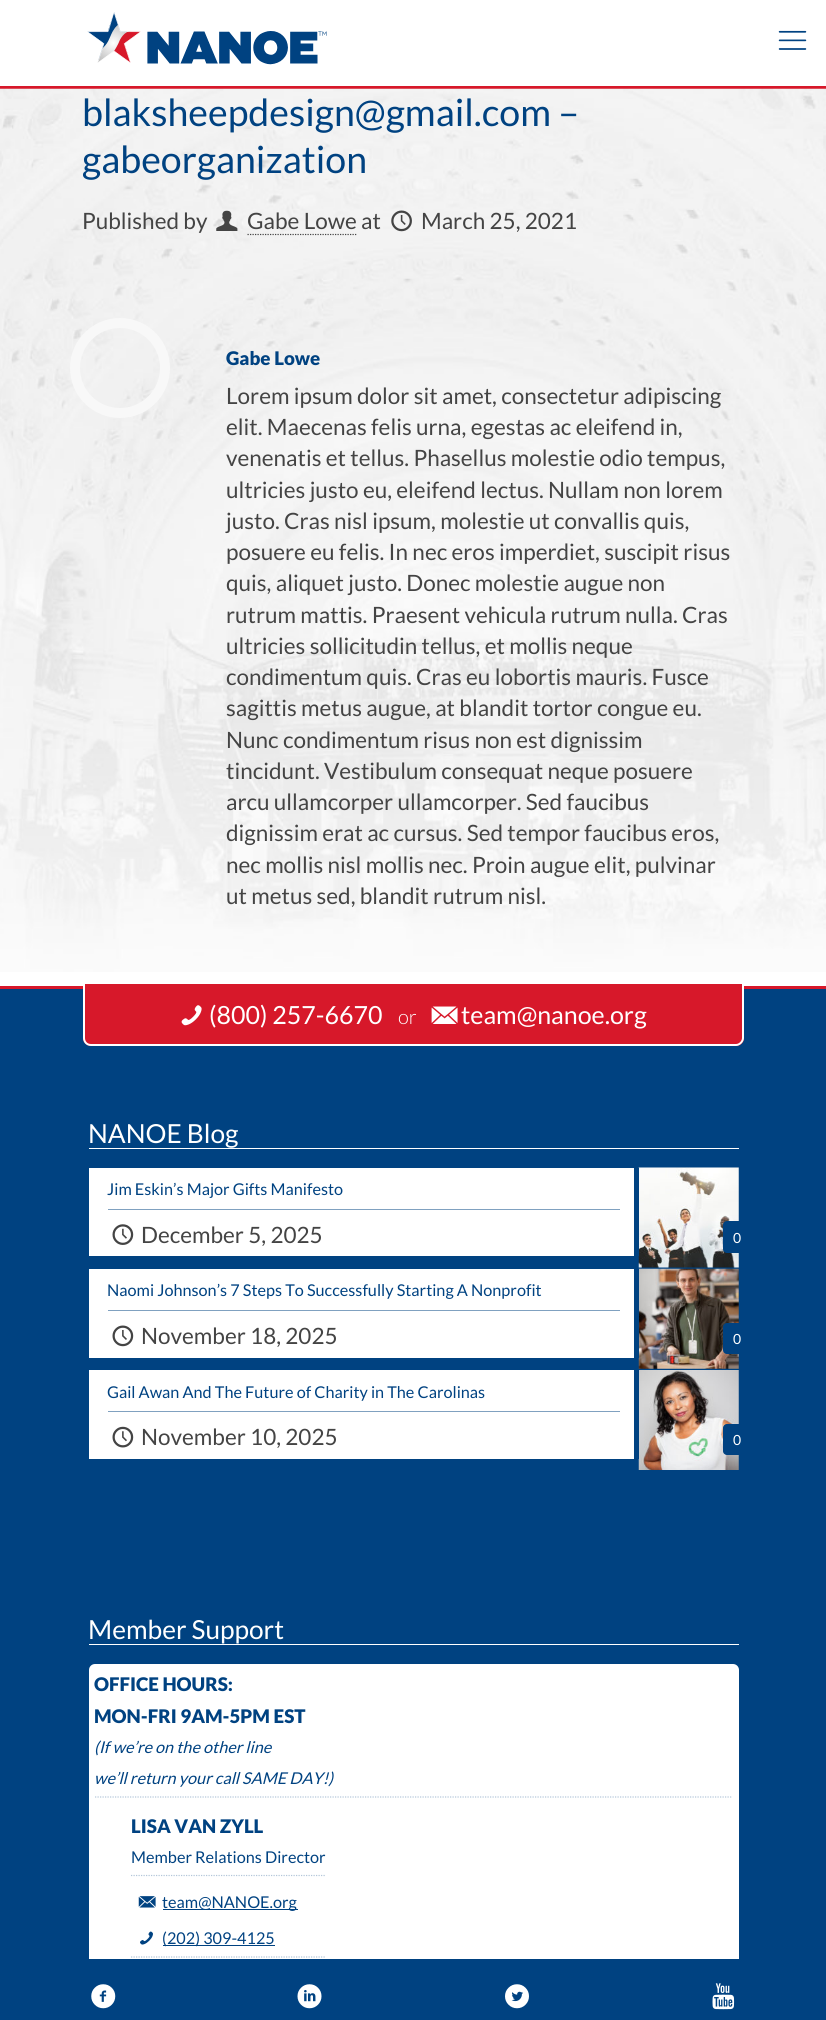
import math
import cairo

surface = cairo.ImageSurface(cairo.Format.RGB24, 826, 2020)
ctx = cairo.Context(surface)
options = cairo.FontOptions()
options.set_hint_metrics(cairo.HintMetrics.OFF)
options.set_hint_style(cairo.HintStyle.NONE)
ctx.set_font_options(options)
ctx.set_miter_limit(4)


def ink(r, g, b):
    ctx.set_source_rgb(r / 255, g / 255, b / 255)


def write(x, y, s, family, size, color, bold=False, italic=False):
    ctx.select_font_face(family, cairo.FontSlant.ITALIC if italic else cairo.FontSlant.NORMAL, cairo.FontWeight.BOLD if bold else cairo.FontWeight.NORMAL)
    ctx.set_font_size(size)
    ink(*color)
    ctx.move_to(x, y)
    ctx.show_text(s)


def block(x, y, w, h, *color):
    ink(*color)
    ctx.rectangle(x, y, w, h)
    ctx.fill()


def round_path(x, y, w, h, r):
    ctx.new_sub_path()
    for i, (u, v) in enumerate([(x + w - r, y + h - r), (x + r, y + h - r), (x + r, y + r), (x + w - r, y + r)]):
        ctx.arc(u, v, r, i * math.pi / 2, (i + 1) * math.pi / 2)
    ctx.close_path()


def paste(path, x, y, w, h):
    ctx.save()
    ctx.set_source_surface(cairo.ImageSurface.create_from_png(path), x, y)
    ctx.rectangle(x, y, w, h)
    ctx.fill()
    ctx.restore()


s1 = dict(family="Lato", size=37.5, color=(0, 66, 129))
s2 = dict(family="Lato", size=22.5, color=(68, 68, 68))
s3 = dict(family="Lato Black", size=18.75, color=(0, 66, 129))
s4 = dict(family="Lato", size=25, color=(255, 255, 255))
s5 = dict(family="Lato Light", size=20, color=(255, 255, 255))
s6 = dict(family="Lato", size=26.25, color=(255, 255, 255))
s7 = dict(family="Lato", size=16.25, color=(0, 66, 129))
s8 = dict(family="Lato", size=14, color=(255, 255, 255))
s9 = dict(family="Lato", size=16.25, color=(0, 66, 129), italic=True)

ink(255, 255, 255)
ctx.paint()
block(0, 86, 826, 3, 215, 24, 42)
paste("pic1.png", 87, 12, 240, 53)
paste("pic2.png", 778, 30, 29, 20)
paste("pic3.png", 0, 88, 826, 884)
write(82, 126, "blaksheepdesign@gmail.com –", **s1)
write(82, 173, "gabeorganization", **s1)
write(82, 229, "Published by", **s2)
paste("pic4.png", 216, 210, 22, 21)
write(247, 229, "Gabe Lowe at", **s2)
ctx.new_path()
ctx.move_to(247.5, 234.5)
ctx.line_to(357.5, 234.5)
ctx.set_line_width(1.2)
ctx.set_dash([1.25, 1.25])
ctx.stroke()
paste("pic5.png", 391, 210, 21, 22)
write(421, 229, "March 25, 2021", **s2)
ctx.new_path()
ctx.arc(120, 368, 45, 0, 2 * math.pi)
ink(248, 248, 248)
ctx.set_line_width(10)
ctx.set_dash([])
ctx.stroke()
write(226, 365, "Gabe Lowe", **s3)
write(226, 404, "Lorem ipsum dolor sit amet, consectetur adipiscing", **s2)
write(226, 435, "elit. Maecenas felis urna, egestas ac eleifend in,", **s2)
write(226, 466, "venenatis et tellus. Phasellus molestie odio tempus,", **s2)
write(226, 498, "ultricies justo eu, eleifend lectus. Nullam non lorem", **s2)
write(226, 529, "justo. Cras nisl ipsum, molestie ut convallis quis,", **s2)
write(226, 560, "posuere eu felis. In nec eros imperdiet, suscipit risus", **s2)
write(226, 591, "quis, aliquet justo. Donec molestie augue non", **s2)
write(226, 623, "rutrum mattis. Praesent vehicula rutrum nulla. Cras", **s2)
write(226, 654, "ultricies sollicitudin tellus, et mollis neque", **s2)
write(226, 685, "condimentum quis. Cras eu lobortis mauris. Fusce", **s2)
write(226, 716, "sagittis metus augue, at blandit tortor congue eu.", **s2)
write(226, 748, "Nunc condimentum risus non est dignissim", **s2)
write(226, 779, "tincidunt. Vestibulum consequat neque posuere", **s2)
write(226, 810, "arcu ullamcorper ullamcorper. Sed faucibus", **s2)
write(226, 841, "dignissim erat ac cursus. Sed tempor faucibus eros,", **s2)
write(226, 873, "nec mollis nisl mollis nec. Proin augue elit, pulvinar", **s2)
write(226, 904, "ut metus sed, blandit rutrum nisl.", **s2)
block(0, 989, 826, 970, 0, 66, 129)
block(0, 986, 826, 3, 215, 24, 42)
ctx.new_path()
ctx.move_to(83, 984)
ctx.line_to(744, 984)
ctx.line_to(744, 1038)
ctx.curve_to(744, 1042.5, 740.5, 1046, 736, 1046)
ctx.line_to(91, 1046)
ctx.curve_to(86.5, 1046, 83, 1042.5, 83, 1038)
ctx.close_path()
ctx.fill()
ink(255, 255, 255)
ctx.set_fill_rule(cairo.FillRule.EVEN_ODD)
ctx.new_path()
ctx.move_to(83, 984)
ctx.line_to(744, 984)
ctx.line_to(744, 1038)
ctx.curve_to(744, 1042, 740, 1046, 736, 1046)
ctx.line_to(91, 1046)
ctx.curve_to(86, 1046, 83, 1042, 83, 1038)
ctx.close_path()
ctx.move_to(85, 984)
ctx.line_to(742, 984)
ctx.line_to(742, 1038)
ctx.curve_to(742, 1041, 739, 1044, 736, 1044)
ctx.line_to(91, 1044)
ctx.curve_to(87, 1044, 85, 1041, 85, 1038)
ctx.close_path()
ctx.fill()
paste("pic6.png", 181, 1005, 21, 21)
write(209, 1024, "(800) 257-6670", **s4)
write(398, 1024, "or", **s5)
paste("pic7.png", 431, 1006, 27, 18)
write(461, 1024, "team@nanoe.org", **s4)
block(89, 1148, 650, 1, 255, 255, 255)
write(88, 1143, "NANOE Blog", **s6)
block(89, 1168, 545, 88, 255, 255, 255)
block(108, 1209, 512, 1, 128, 161, 192)
write(107, 1195, "Jim Eskin’s Major Gifts Manifesto", **s7)
paste("pic9.png", 638, 1167, 101, 101)
block(638, 1168, 1, 88, 0, 66, 129)
paste("pic8.png", 112, 1224, 22, 21)
write(141, 1243, "December 5, 2025", **s2)
ink(0, 66, 129)
round_path(723, 1221, 31, 32, 4)
ctx.fill()
write(733, 1243, "0", **s8)
block(89, 1269, 545, 89, 255, 255, 255)
block(108, 1310, 512, 1, 128, 161, 192)
write(107, 1296, "Naomi Johnson’s 7 Steps To Successfully Starting A Nonprofit", **s7)
paste("pic11.png", 638, 1268, 101, 101)
block(638, 1269, 1, 89, 0, 66, 129)
paste("pic10.png", 112, 1325, 22, 22)
write(141, 1344, "November 18, 2025", **s2)
ink(0, 66, 129)
round_path(723, 1323, 31, 31, 4)
ctx.fill()
write(733, 1344, "0", **s8)
block(89, 1370, 545, 89, 255, 255, 255)
block(108, 1411, 512, 1, 128, 161, 192)
write(107, 1398, "Gail Awan And The Future of Charity in The Carolinas", **s7)
paste("pic13.png", 638, 1370, 101, 100)
block(638, 1370, 1, 89, 0, 66, 129)
paste("pic12.png", 112, 1426, 22, 22)
write(141, 1445, "November 10, 2025", **s2)
ink(0, 66, 129)
round_path(723, 1424, 31, 31, 4)
ctx.fill()
write(733, 1445, "0", **s8)
block(89, 1644, 650, 1, 255, 255, 255)
write(88, 1639, "Member Support", **s6)
round_path(89, 1664, 650, 317, 6)
ctx.fill()
write(94, 1691, "OFFICE HOURS:", **s3)
write(94, 1723, "MON-FRI 9AM-5PM EST", **s3)
ctx.new_path()
ctx.move_to(95, 1797)
ctx.line_to(732.5, 1797)
ink(179, 198, 217)
ctx.set_line_width(1.2)
ctx.set_dash([1.25, 1.25])
ctx.stroke()
write(94, 1753, "(If we’re on the other line", **s9)
write(94, 1784, "we’ll return your call SAME DAY!)", **s9)
write(131, 1833, "LISA VAN ZYLL", **s3)
ctx.new_path()
ctx.move_to(131, 1875.5)
ctx.line_to(326, 1875.5)
ink(179, 198, 217)
ctx.stroke()
write(131, 1863, "Member Relations Director", **s7)
ctx.new_path()
ctx.move_to(131, 1957)
ctx.line_to(326, 1957)
ink(179, 198, 217)
ctx.stroke()
paste("pic14.png", 138, 1896, 18, 12)
block(163, 1909, 135, 1, 0, 66, 129)
write(162, 1908, "team@NANOE.org", **s7)
paste("pic15.png", 140, 1931, 13, 14)
block(163, 1945, 112, 1, 0, 66, 129)
write(162, 1944, "(202) 309-4125", **s7)
block(0, 1959, 826, 61, 0, 66, 129)
paste("pic16.png", 91, 1984, 25, 25)
paste("pic17.png", 297, 1984, 25, 25)
paste("pic18.png", 505, 1984, 24, 25)
paste("pic19.png", 712, 1983, 23, 27)
surface.write_to_png("screenshot.png")
